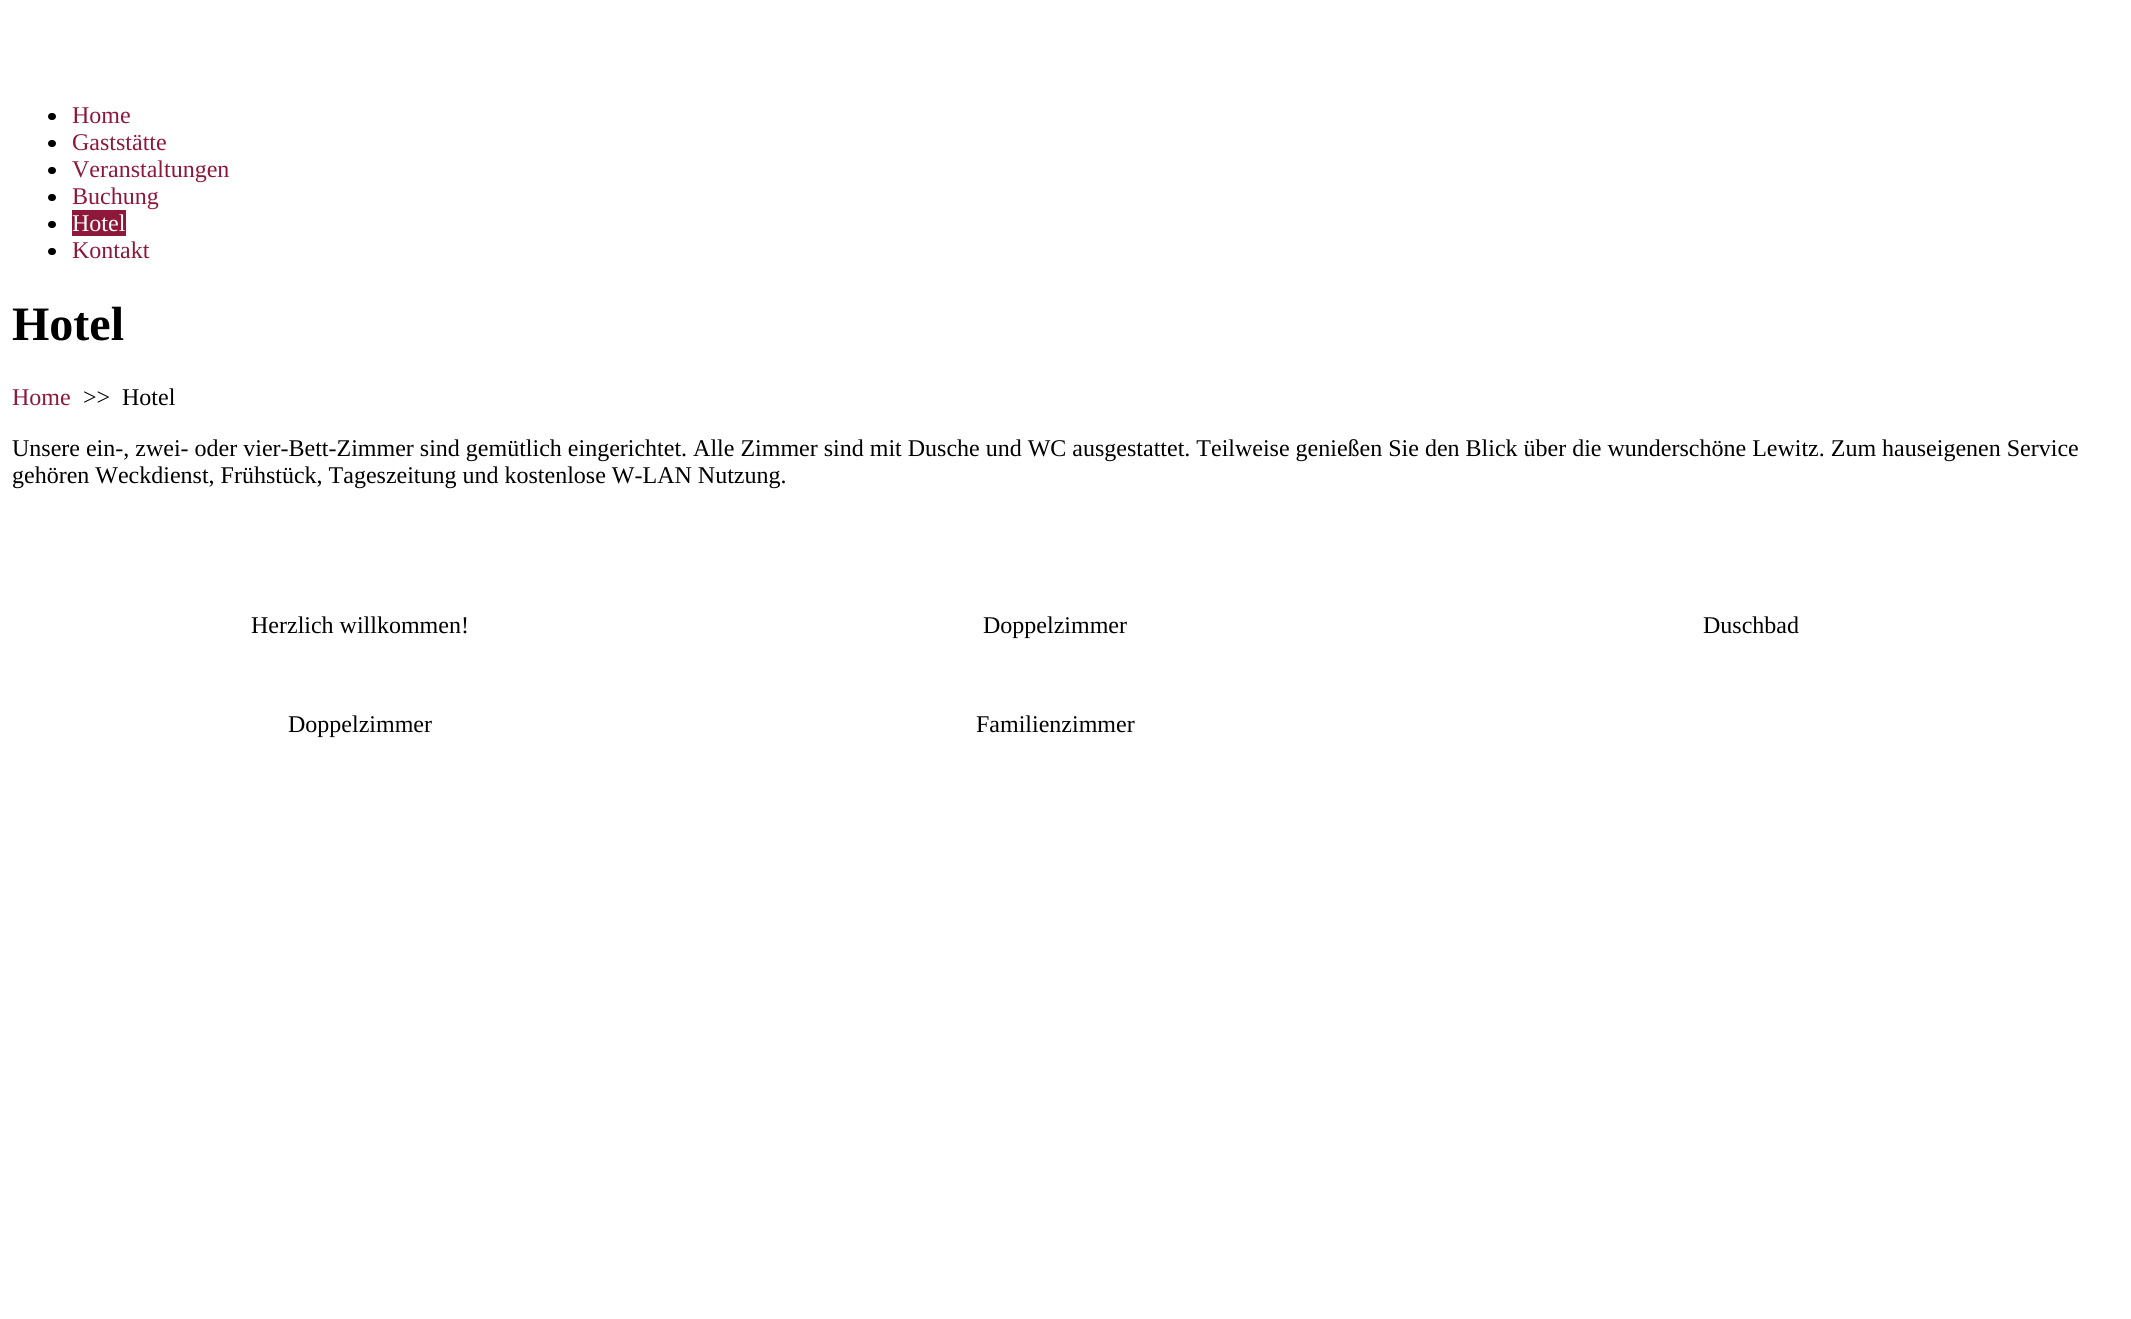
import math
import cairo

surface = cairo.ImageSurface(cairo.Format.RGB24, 2131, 1319)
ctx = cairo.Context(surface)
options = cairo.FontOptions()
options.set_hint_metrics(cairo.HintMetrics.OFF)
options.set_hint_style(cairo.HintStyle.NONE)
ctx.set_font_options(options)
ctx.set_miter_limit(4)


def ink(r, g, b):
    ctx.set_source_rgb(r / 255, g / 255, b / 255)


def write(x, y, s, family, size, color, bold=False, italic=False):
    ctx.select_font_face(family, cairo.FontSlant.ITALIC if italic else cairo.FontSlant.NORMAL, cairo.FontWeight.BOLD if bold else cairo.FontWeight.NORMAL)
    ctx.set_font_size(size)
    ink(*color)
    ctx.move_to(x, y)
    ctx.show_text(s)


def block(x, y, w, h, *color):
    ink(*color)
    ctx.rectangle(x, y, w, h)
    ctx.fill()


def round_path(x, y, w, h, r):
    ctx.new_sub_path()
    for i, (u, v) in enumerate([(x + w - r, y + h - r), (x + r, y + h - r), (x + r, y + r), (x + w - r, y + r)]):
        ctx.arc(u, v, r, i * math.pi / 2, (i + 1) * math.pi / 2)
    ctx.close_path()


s1 = dict(family="Liberation Serif", size=24, color=(142, 24, 58))
s2 = dict(family="Liberation Serif", size=24, color=(255, 255, 255))
s3 = dict(family="Liberation Serif", size=48, color=(0, 0, 0), bold=True)
s4 = dict(family="Liberation Serif", size=24, color=(0, 0, 0))

ink(255, 255, 255)
ctx.paint()
ink(0, 0, 0)
round_path(48, 113, 8, 7, 3.5)
ctx.fill()
write(72, 123, "Home", **s1)
ink(0, 0, 0)
round_path(48, 140, 8, 7, 3.5)
ctx.fill()
write(72, 150, "Gaststätte", **s1)
ink(0, 0, 0)
round_path(48, 167, 8, 7, 3.5)
ctx.fill()
write(72, 177, "Veranstaltungen", **s1)
ink(0, 0, 0)
round_path(48, 194, 8, 7, 3.5)
ctx.fill()
write(72, 204, "Buchung", **s1)
ink(0, 0, 0)
round_path(48, 221, 8, 7, 3.5)
ctx.fill()
block(72, 210, 54, 26, 142, 24, 58)
write(72, 231, "Hotel", **s2)
ink(0, 0, 0)
round_path(48, 248, 8, 7, 3.5)
ctx.fill()
write(72, 258, "Kontakt", **s1)
write(12, 340, "Hotel", **s3)
write(12, 405, "Home", **s1)
write(83, 405, ">>", **s4)
write(122, 405, "Hotel", **s4)
write(12, 456, "Unsere ein-, zwei- oder vier-Bett-Zimmer sind gemütlich eingerichtet. Alle Zimmer sind mit Dusche und WC ausgestattet. Teilweise genießen Sie den Blick über die wunderschöne Lewitz. Zum hauseigenen Service", **s4)
write(12, 483, "gehören Weckdienst, Frühstück, Tageszeitung und kostenlose W-LAN Nutzung.", **s4)
write(251, 633, "Herzlich willkommen!", **s4)
write(983, 633, "Doppelzimmer", **s4)
write(1703, 633, "Duschbad", **s4)
write(288, 732, "Doppelzimmer", **s4)
write(976, 732, "Familienzimmer", **s4)
surface.write_to_png("screenshot.png")
